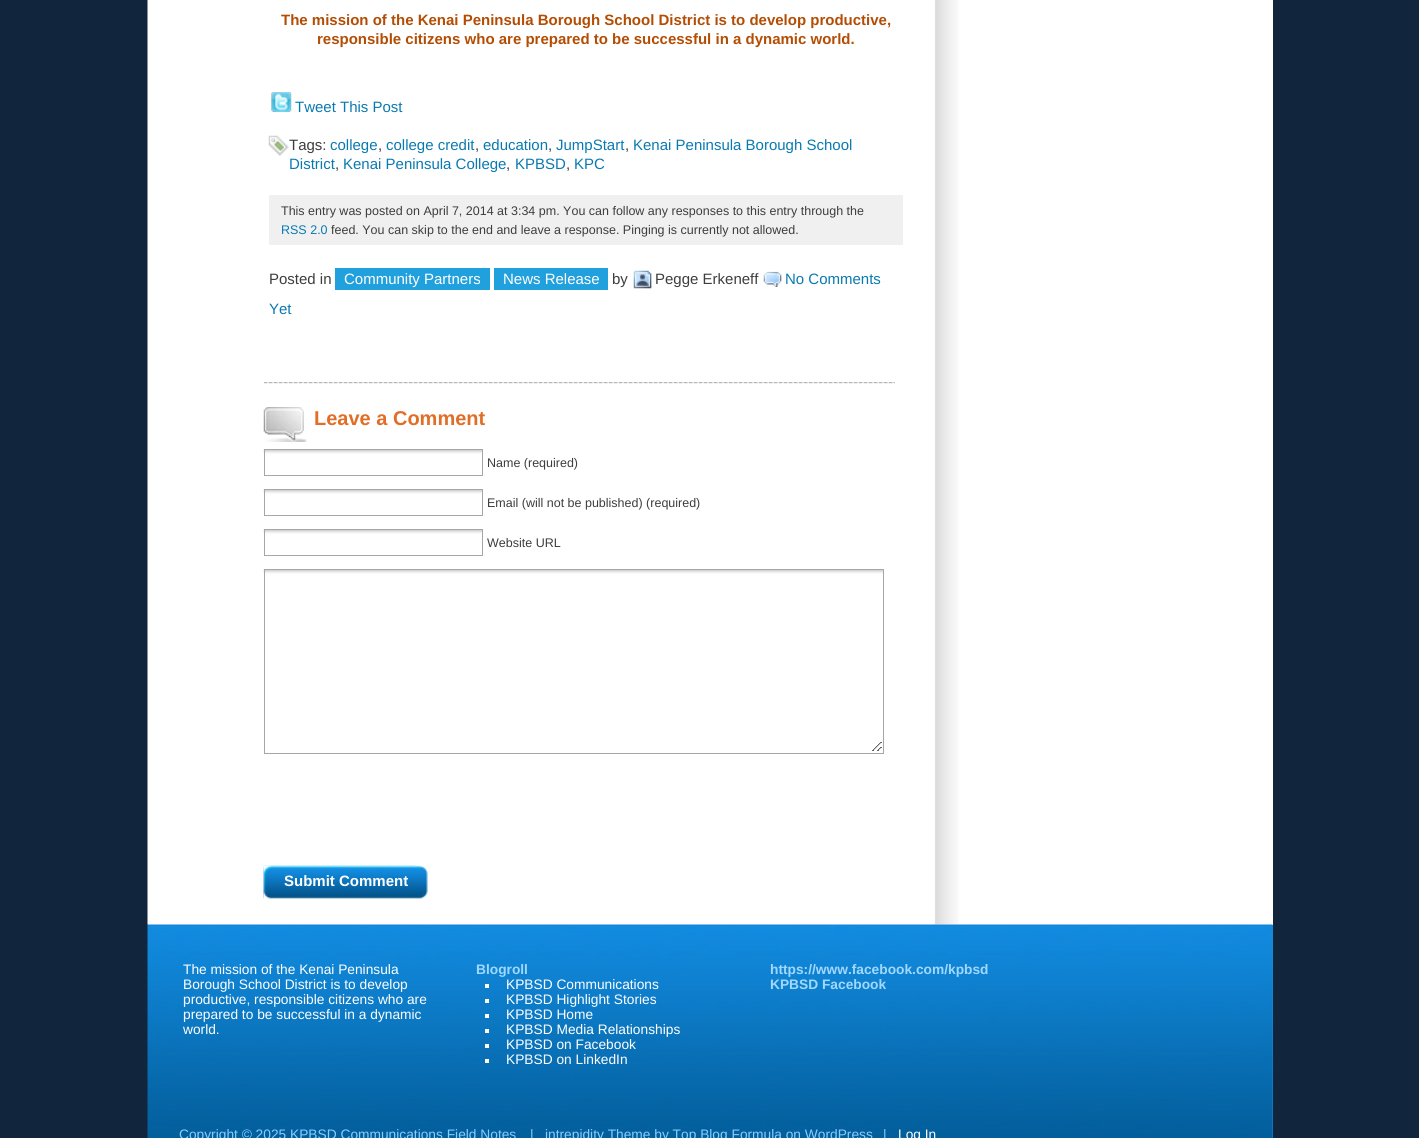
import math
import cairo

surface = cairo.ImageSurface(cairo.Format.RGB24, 1419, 1138)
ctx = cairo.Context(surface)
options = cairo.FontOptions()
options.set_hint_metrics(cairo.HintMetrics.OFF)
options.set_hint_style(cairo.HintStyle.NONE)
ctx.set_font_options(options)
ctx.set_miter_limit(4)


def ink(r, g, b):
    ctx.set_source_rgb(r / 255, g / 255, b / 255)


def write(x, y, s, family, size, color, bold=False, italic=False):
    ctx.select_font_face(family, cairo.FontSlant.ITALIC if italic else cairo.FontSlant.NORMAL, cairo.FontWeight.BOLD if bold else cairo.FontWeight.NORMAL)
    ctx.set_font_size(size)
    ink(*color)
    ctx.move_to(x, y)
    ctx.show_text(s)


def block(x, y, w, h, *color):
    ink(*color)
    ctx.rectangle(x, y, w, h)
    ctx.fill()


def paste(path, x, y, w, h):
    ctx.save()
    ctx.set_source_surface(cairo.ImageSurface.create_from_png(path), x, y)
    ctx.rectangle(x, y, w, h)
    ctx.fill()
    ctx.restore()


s1 = dict(family="Liberation Sans", size=15, color=(180, 77, 4), bold=True)
s2 = dict(family="Liberation Sans", size=15, color=(9, 122, 177))
s3 = dict(family="Liberation Sans", size=15, color=(61, 61, 61))
s4 = dict(family="Liberation Sans", size=12.5, color=(61, 61, 61))
s5 = dict(family="Liberation Sans", size=12.5, color=(9, 122, 177))
s6 = dict(family="Liberation Sans", size=15, color=(255, 255, 255))
s7 = dict(family="Liberation Sans", size=20, color=(226, 109, 39), bold=True)
s8 = dict(family="Liberation Sans", size=15, color=(255, 255, 255), bold=True)
s9 = dict(family="Liberation Sans", size=13.75, color=(255, 255, 255))
s10 = dict(family="Liberation Sans", size=13.75, color=(161, 216, 255), bold=True)
s11 = dict(family="Liberation Sans", size=13.75, color=(136, 206, 255))

ink(17, 37, 61)
ctx.paint()
block(148, 0, 1125, 925, 255, 255, 255)
paste("pic1.png", 147, 0, 812, 925)
write(281, 25, "The mission of the Kenai Peninsula Borough School District is to develop productive,", **s1)
write(317, 44, "responsible citizens who are prepared to be successful in a dynamic world.", **s1)
paste("pic2.png", 271, 92, 21, 20)
write(295, 112, "Tweet This Post", **s2)
paste("pic3.png", 268, 135, 21, 21)
write(289, 150, "Tags:", **s3)
write(330, 150, "college", **s2)
write(378, 150, ",", **s3)
write(386, 150, "college credit", **s2)
write(475, 150, ",", **s3)
write(483, 150, "education", **s2)
write(548, 150, ",", **s3)
write(556, 150, "JumpStart", **s2)
write(625, 150, ",", **s3)
write(633, 150, "Kenai Peninsula Borough School", **s2)
write(289, 169, "District", **s2)
write(335, 169, ",", **s3)
write(343, 169, "Kenai Peninsula College", **s2)
write(506, 169, ",", **s3)
write(515, 169, "KPBSD", **s2)
write(566, 169, ",", **s3)
write(574, 169, "KPC", **s2)
block(269, 195, 634, 50, 240, 240, 240)
write(281, 215, "This entry was posted on April 7, 2014 at 3:34 pm. You can follow any responses to this entry through the", **s4)
write(281, 234, "RSS 2.0", **s5)
write(331, 234, "feed. You can skip to the end and leave a response. Pinging is currently not allowed.", **s4)
write(269, 284, "Posted in", **s3)
block(335, 268, 155, 22, 33, 160, 222)
write(344, 284, "Community Partners", **s6)
block(494, 268, 114, 22, 33, 160, 222)
write(503, 284, "News Release", **s6)
write(612, 284, "by", **s3)
paste("pic4.png", 633, 270, 19, 19)
write(655, 284, "Pegge Erkeneff", **s3)
paste("pic5.png", 763, 271, 19, 16)
write(785, 284, "No Comments", **s2)
write(269, 314, "Yet", **s2)
paste("pic6.png", 263, 382, 632, 2)
paste("pic7.png", 263, 407, 44, 35)
write(314, 425, "Leave a Comment", **s7)
paste("pic8.png", 263, 449, 219, 5)
ctx.rectangle(264.5, 449.5, 218, 26)
ink(166, 166, 166)
ctx.set_line_width(1)
ctx.stroke()
write(487, 467, "Name (required)", **s4)
paste("pic8.png", 263, 489, 219, 5)
ctx.rectangle(264.5, 489.5, 218, 26)
ink(166, 166, 166)
ctx.stroke()
write(487, 507, "Email (will not be published) (required)", **s4)
paste("pic8.png", 263, 529, 219, 5)
ctx.rectangle(264.5, 529.5, 218, 26)
ink(166, 166, 166)
ctx.stroke()
write(487, 547, "Website URL", **s4)
paste("pic9.png", 263, 569, 620, 182)
ctx.rectangle(264.5, 569.5, 619, 184)
ink(166, 166, 166)
ctx.stroke()
paste("pic10.png", 263, 865, 165, 34)
paste("pic11.png", 263, 865, 152, 34)
write(284, 886, "Submit Comment", **s8)
block(1272, 925, 1, 213, 18, 139, 223)
paste("pic12.png", 147, 924, 1126, 214)
write(183, 974, "The mission of the Kenai Peninsula", **s9)
write(183, 989, "Borough School District is to develop", **s9)
write(183, 1004, "productive, responsible citizens who are", **s9)
write(183, 1019, "prepared to be successful in a dynamic", **s9)
write(183, 1034, "world.", **s9)
write(476, 974, "Blogroll", **s10)
block(485, 984, 4, 4, 255, 255, 255)
write(506, 989, "KPBSD Communications", **s9)
block(485, 999, 4, 4, 255, 255, 255)
write(506, 1004, "KPBSD Highlight Stories", **s9)
block(485, 1014, 4, 4, 255, 255, 255)
write(506, 1019, "KPBSD Home", **s9)
block(485, 1029, 4, 4, 255, 255, 255)
write(506, 1034, "KPBSD Media Relationships", **s9)
block(485, 1044, 4, 4, 255, 255, 255)
write(506, 1049, "KPBSD on Facebook", **s9)
block(485, 1059, 4, 4, 255, 255, 255)
write(506, 1064, "KPBSD on LinkedIn", **s9)
write(770, 974, "https://www.facebook.com/kpbsd", **s10)
write(770, 989, "KPBSD Facebook", **s10)
write(179, 1139, "Copyright © 2025 KPBSD Communications Field Notes", **s11)
write(530, 1139, "|", **s11)
write(545, 1139, "intrepidity Theme by Top Blog Formula on WordPress", **s11)
write(883, 1139, "|", **s11)
write(898, 1139, "Log In", **s9)
surface.write_to_png("screenshot.png")
